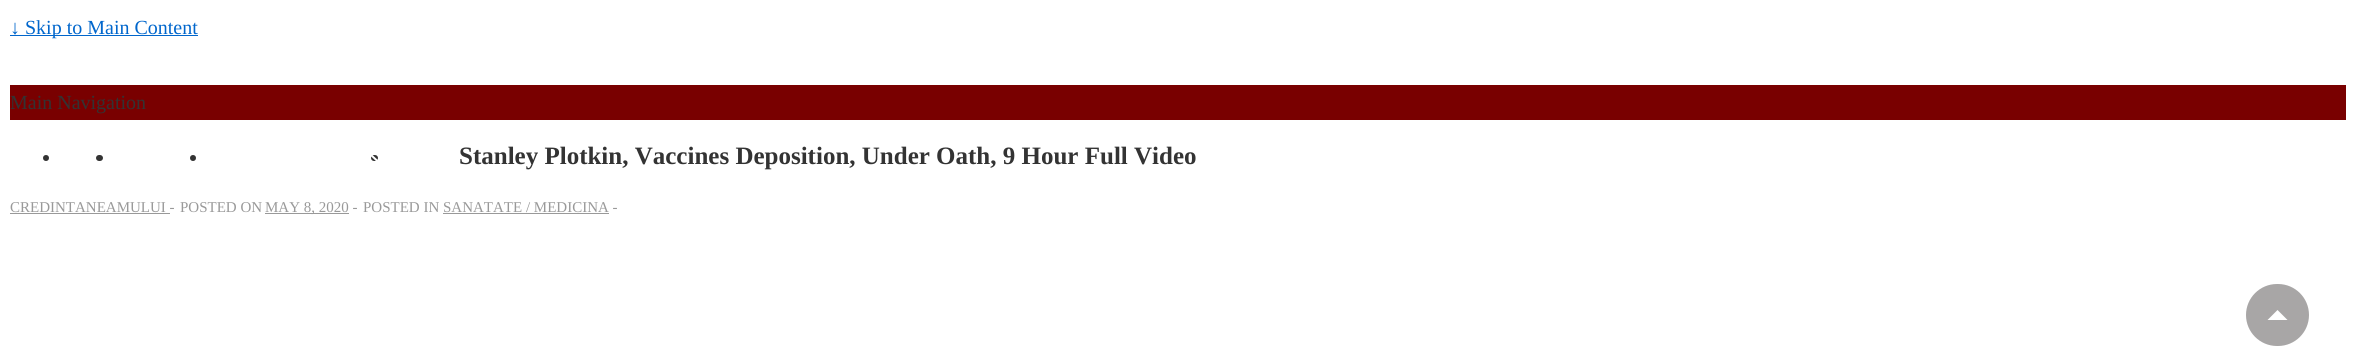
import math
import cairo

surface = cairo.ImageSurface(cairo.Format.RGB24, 2356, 358)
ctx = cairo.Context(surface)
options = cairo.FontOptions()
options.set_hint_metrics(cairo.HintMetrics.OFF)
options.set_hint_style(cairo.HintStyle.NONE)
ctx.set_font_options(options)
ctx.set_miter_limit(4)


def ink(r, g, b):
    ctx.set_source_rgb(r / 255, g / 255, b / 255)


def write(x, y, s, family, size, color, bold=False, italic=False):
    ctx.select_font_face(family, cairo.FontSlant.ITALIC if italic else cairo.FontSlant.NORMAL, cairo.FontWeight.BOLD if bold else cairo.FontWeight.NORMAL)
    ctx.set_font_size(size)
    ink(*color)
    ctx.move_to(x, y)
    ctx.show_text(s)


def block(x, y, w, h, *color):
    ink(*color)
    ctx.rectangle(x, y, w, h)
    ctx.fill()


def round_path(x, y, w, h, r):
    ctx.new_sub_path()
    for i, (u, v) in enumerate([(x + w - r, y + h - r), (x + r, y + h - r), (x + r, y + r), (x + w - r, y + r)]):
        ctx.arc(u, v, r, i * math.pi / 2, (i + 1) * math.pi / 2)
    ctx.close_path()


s1 = dict(family="Liberation Serif", size=20, color=(0, 102, 204))
s2 = dict(family="Liberation Serif", size=20, color=(51, 51, 51))
s3 = dict(family="Liberation Serif", size=25, color=(51, 51, 51), bold=True)
s4 = dict(family="Liberation Serif", size=15, color=(153, 153, 153))

ink(255, 255, 255)
ctx.paint()
block(10, 35, 188, 1, 0, 102, 204)
write(10, 34, "↓ Skip to Main Content", **s1)
block(10, 85, 2336, 35, 121, 0, 0)
write(10, 109, "Main Navigation", **s2)
ctx.new_path()
ctx.arc(46, 158, 3, 0, 2 * math.pi)
ctx.fill()
round_path(96, 155, 7, 6, 3)
ctx.fill()
ctx.arc(193, 158, 3, 0, 2 * math.pi)
ctx.fill()
round_path(371, 155, 7, 6, 3)
ctx.fill()
ctx.save()
ctx.rectangle(370, 154, 19, 10)
ctx.clip()
ctx.new_path()
ctx.move_to(370.5, 154.5)
ctx.line_to(379.5, 163)
ctx.line_to(388, 154.5)
ink(255, 255, 255)
ctx.set_line_cap(cairo.LineCap.ROUND)
ctx.stroke()
ctx.restore()
write(459, 164, "Stanley Plotkin, Vaccines Deposition, Under Oath, 9 Hour Full Video", **s3)
write(10, 212, "CREDINTANEAMULUI -", **s4)
block(10, 213, 160, 1, 153, 153, 153)
write(180, 212, "POSTED ON", **s4)
block(265, 213, 84, 1, 153, 153, 153)
write(265, 212, "MAY 8, 2020 -", **s4)
write(363, 212, "POSTED IN SANATATE / MEDICINA -", **s4)
block(443, 213, 166, 1, 153, 153, 153)
ink(168, 166, 166)
round_path(2246, 284, 63, 62, 31)
ctx.fill()
ink(255, 255, 255)
ctx.new_path()
ctx.move_to(2287.5, 320)
ctx.line_to(2267.5, 320)
ctx.line_to(2277.5, 310)
ctx.close_path()
ctx.fill()
surface.write_to_png("screenshot.png")
